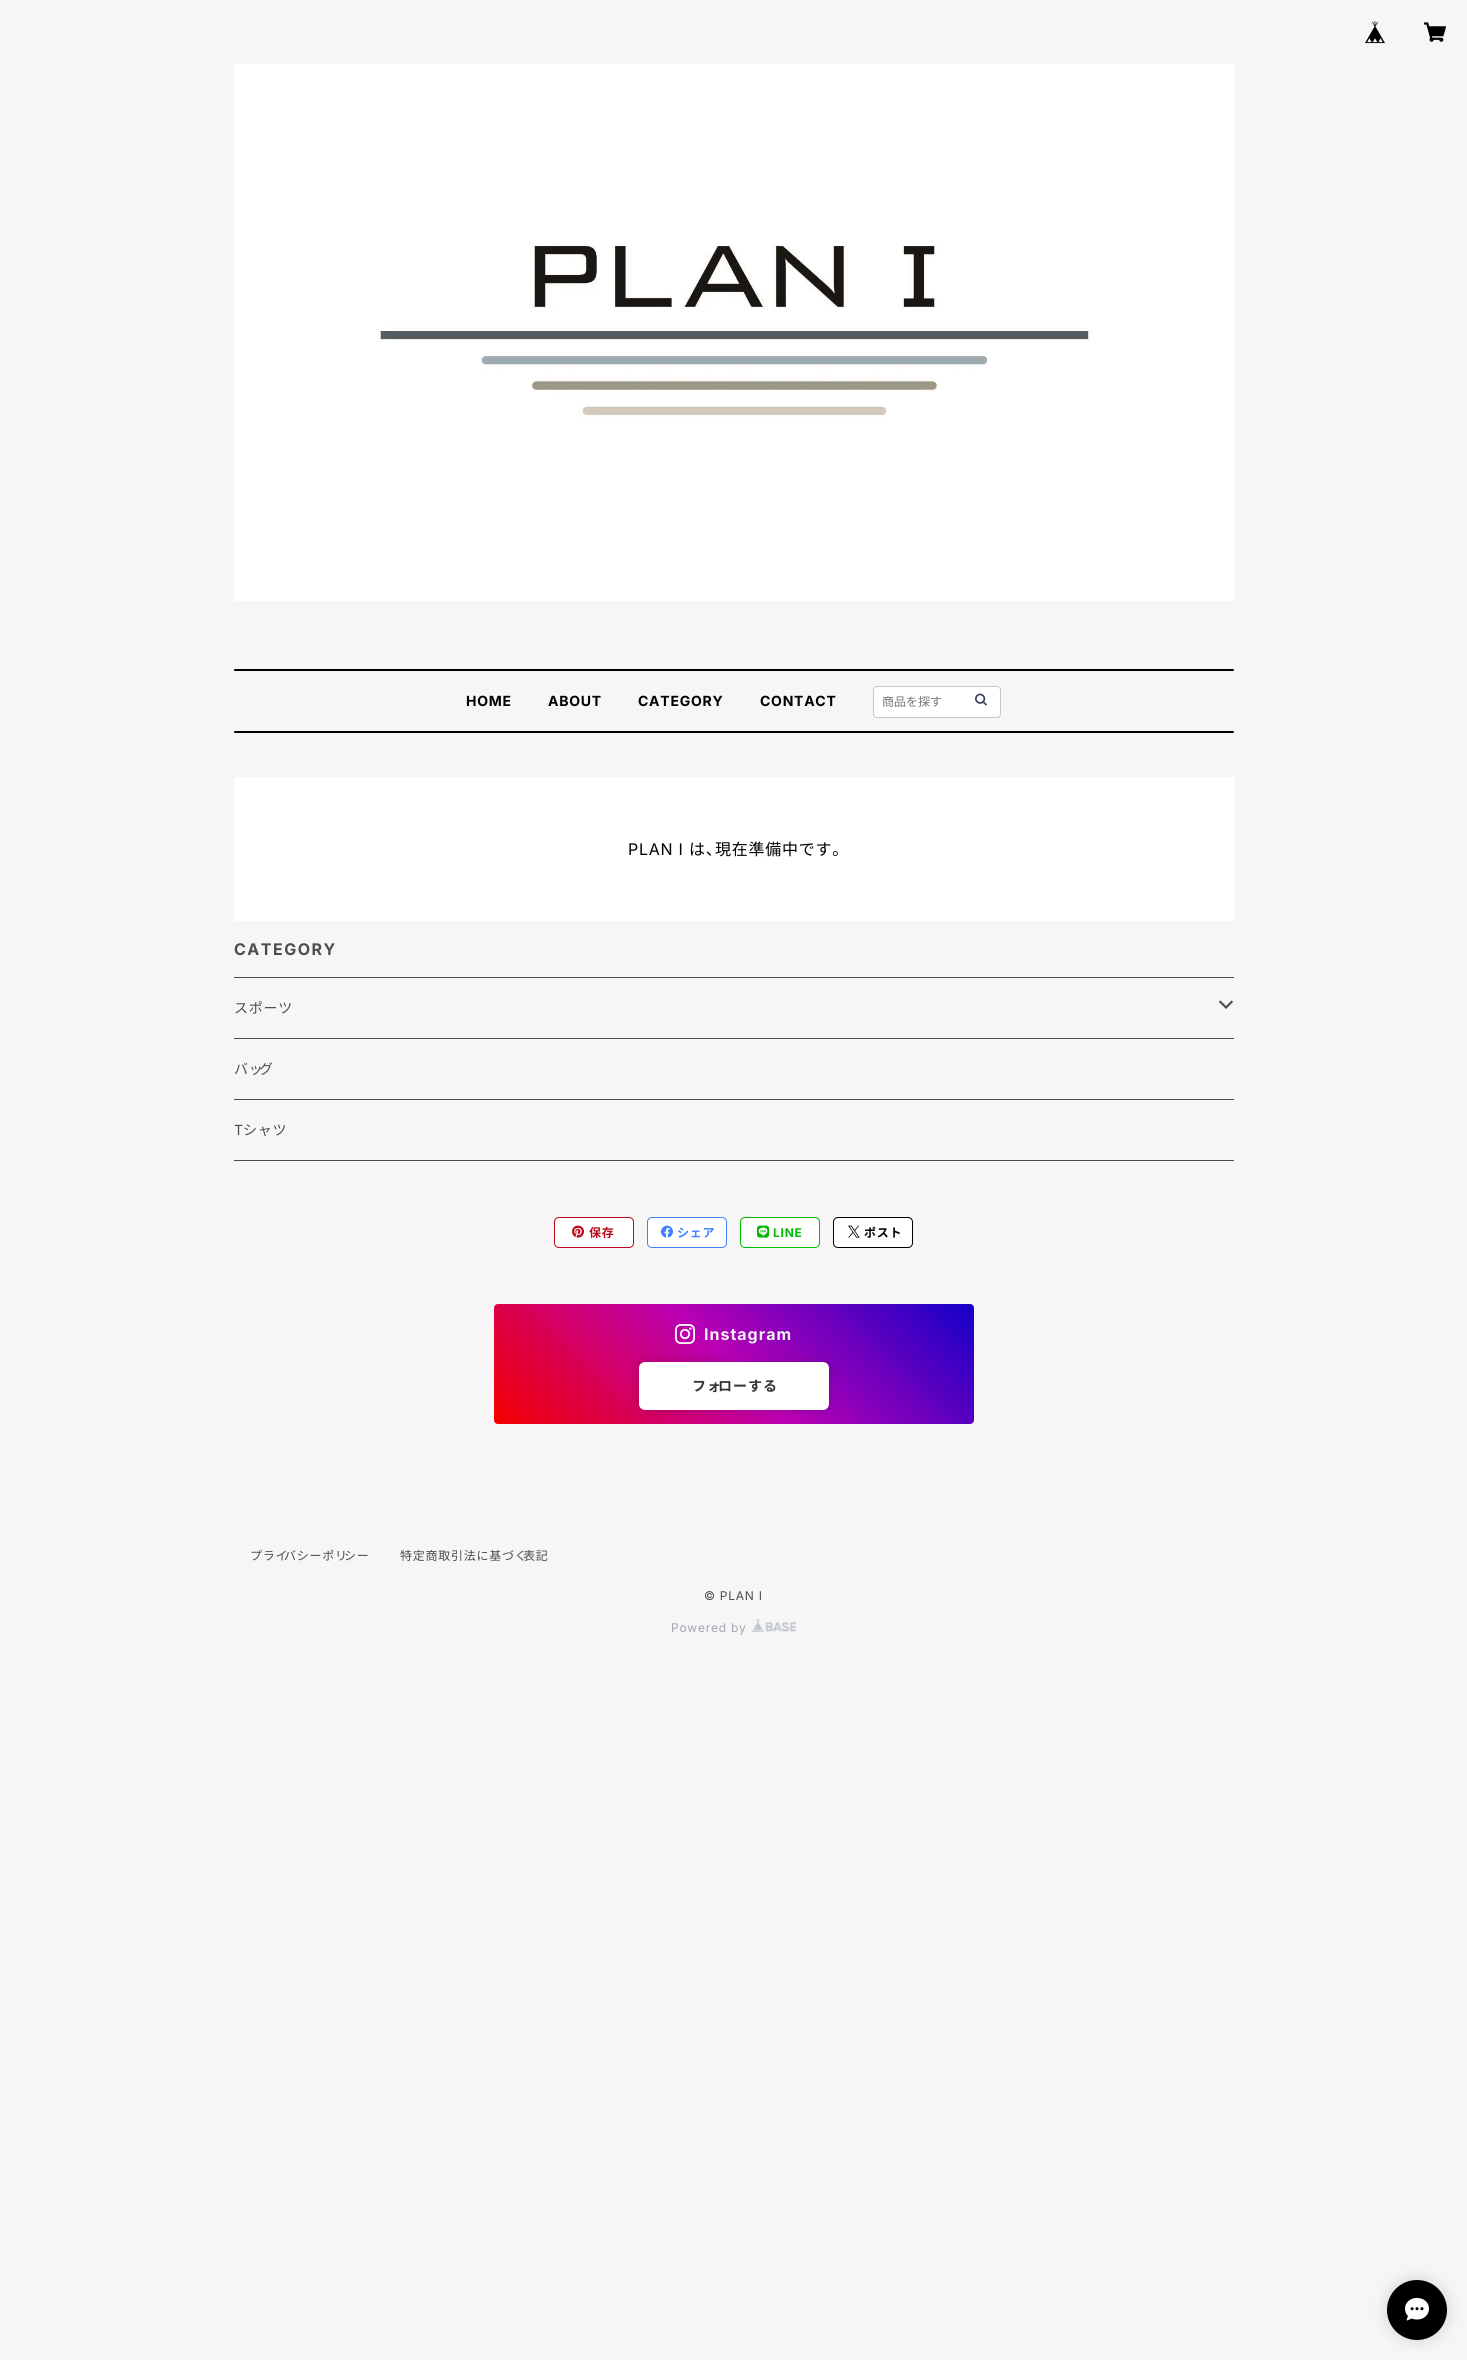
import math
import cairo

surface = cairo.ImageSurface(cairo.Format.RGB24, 1467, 2360)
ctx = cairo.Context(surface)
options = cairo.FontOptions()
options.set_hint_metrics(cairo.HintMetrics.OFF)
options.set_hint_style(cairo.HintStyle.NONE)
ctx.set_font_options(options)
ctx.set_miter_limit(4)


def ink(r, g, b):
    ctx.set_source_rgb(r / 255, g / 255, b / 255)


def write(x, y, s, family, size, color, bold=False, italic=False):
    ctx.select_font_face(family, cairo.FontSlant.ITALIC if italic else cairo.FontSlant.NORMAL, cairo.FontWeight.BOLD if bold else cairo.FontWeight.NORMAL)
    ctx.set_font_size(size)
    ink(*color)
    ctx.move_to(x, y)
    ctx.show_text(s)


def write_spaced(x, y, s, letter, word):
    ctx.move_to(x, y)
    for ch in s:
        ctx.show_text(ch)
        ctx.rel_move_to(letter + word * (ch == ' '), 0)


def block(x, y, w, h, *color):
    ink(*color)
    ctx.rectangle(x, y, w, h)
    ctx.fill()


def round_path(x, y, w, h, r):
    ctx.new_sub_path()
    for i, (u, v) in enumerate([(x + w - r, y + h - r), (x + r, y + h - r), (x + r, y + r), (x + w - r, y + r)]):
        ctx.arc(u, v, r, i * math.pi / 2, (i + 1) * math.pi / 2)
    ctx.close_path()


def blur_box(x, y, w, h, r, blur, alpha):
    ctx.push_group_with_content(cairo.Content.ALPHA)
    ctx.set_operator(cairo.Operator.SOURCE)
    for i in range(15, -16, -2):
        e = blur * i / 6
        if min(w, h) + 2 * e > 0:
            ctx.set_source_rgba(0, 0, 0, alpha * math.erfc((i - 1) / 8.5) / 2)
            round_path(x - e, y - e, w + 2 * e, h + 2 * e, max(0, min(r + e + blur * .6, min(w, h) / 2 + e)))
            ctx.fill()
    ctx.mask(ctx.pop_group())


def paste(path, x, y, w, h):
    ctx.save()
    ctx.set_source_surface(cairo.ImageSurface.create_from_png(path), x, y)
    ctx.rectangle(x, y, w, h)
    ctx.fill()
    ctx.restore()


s1 = dict(family="Noto Sans JP", size=12, color=(117, 117, 117))

ink(247, 245, 245)
ctx.paint()
paste("pic1.png", 1365, 21, 20, 23)
paste("pic2.png", 1424, 22, 22, 20)
paste("pic3.png", 234, 64, 1000, 537)
ink(0, 0, 0)
round_path(234, 669, 1000, 2, 1)
ctx.fill()
ctx.select_font_face("Inter", cairo.FontSlant.NORMAL, cairo.FontWeight.BOLD)
ctx.set_font_size(14)
write_spaced(466, 706, "HOME", 0.75, 0)
write_spaced(548, 706, "ABOUT", 0.75, 0)
write_spaced(638, 706, "CATEGORY", 0.75, 0)
write_spaced(760, 706, "CONTACT", 0.75, 0)
ink(255, 255, 255)
round_path(873.5, 686.5, 127, 31, 3.5)
ctx.fill_preserve()
ink(194, 200, 210)
ctx.set_line_width(1)
ctx.stroke()
write(882, 706, "商品を探す", **s1)
paste("pic4.png", 975, 693, 12, 13)
ink(0, 0, 0)
round_path(234, 731, 1000, 2, 1)
ctx.fill()
block(234, 777, 1000, 144, 255, 255, 255)
ctx.select_font_face("Inter")
ctx.set_font_size(16)
ink(0, 0, 0)
write_spaced(628, 855, "PLAN I", 0.75, 0)
ctx.select_font_face("Noto Sans JP")
write_spaced(689, 855, "は、", 0.75, 0)
write_spaced(715, 855, "現在準備中です。", 0.75, 0)
ctx.select_font_face("Inter", cairo.FontSlant.NORMAL, cairo.FontWeight.BOLD)
ink(77, 77, 77)
write_spaced(234, 955, "CATEGORY", 1.5, 0)
block(234, 977, 1000, 1, 77, 77, 77)
block(234, 1160, 1000, 1, 77, 77, 77)
ctx.select_font_face("Noto Sans JP")
ctx.set_font_size(14)
write_spaced(234, 1013, "スポーツ", 0.75, 0)
paste("pic5.png", 1219, 1000, 14, 9)
block(234, 1038, 1000, 1, 77, 77, 77)
write_spaced(234, 1074, "バッ", 0.75, 0)
write_spaced(259, 1074, "グ", 0.75, 0)
block(234, 1099, 1000, 1, 77, 77, 77)
ctx.select_font_face("Inter")
write_spaced(234, 1135, "T", 0.75, 0)
ctx.select_font_face("Noto Sans JP")
write_spaced(243, 1135, "シャツ", 0.75, 0)
ink(255, 255, 255)
round_path(554.5, 1217.5, 79, 30, 4.5)
ctx.fill_preserve()
ink(189, 9, 28)
ctx.stroke()
paste("pic6.png", 572, 1225, 12, 13)
ctx.select_font_face("Noto Sans JP", cairo.FontSlant.NORMAL, cairo.FontWeight.BOLD)
ctx.set_font_size(12)
write_spaced(589, 1237, "保存", 0.75, 0)
ink(255, 255, 255)
round_path(647.5, 1217.5, 79, 30, 4.5)
ctx.fill_preserve()
ink(64, 129, 255)
ctx.stroke()
paste("pic7.png", 661, 1225, 12, 13)
write_spaced(677, 1237, "シェア", 0.75, 0)
ink(255, 255, 255)
round_path(740.5, 1217.5, 79, 30, 4.5)
ctx.fill_preserve()
ink(0, 185, 1)
ctx.stroke()
paste("pic8.png", 757, 1225, 12, 13)
ctx.select_font_face("Inter", cairo.FontSlant.NORMAL, cairo.FontWeight.BOLD)
write_spaced(773, 1237, "LINE", 0.75, 0)
ink(255, 255, 255)
round_path(833.5, 1217.5, 79, 30, 4.5)
ctx.fill_preserve()
ink(0, 0, 0)
ctx.stroke()
paste("pic9.png", 848, 1225, 12, 13)
ctx.select_font_face("Noto Sans JP", cairo.FontSlant.NORMAL, cairo.FontWeight.BOLD)
write_spaced(864, 1237, "ポスト", 0.75, 0)
gradient = cairo.LinearGradient(884, 1214, 584, 1514)
gradient.add_color_stop_rgba(0, 0.078, 0, 0.784, 1)
gradient.add_color_stop_rgba(0.5, 0.725, 0, 0.706, 1)
gradient.add_color_stop_rgba(1, 0.961, 0, 0, 1)
ctx.set_source(gradient)
round_path(494, 1304, 480, 120, 4)
ctx.fill()
paste("pic10.png", 675, 1324, 20, 20)
ctx.select_font_face("Inter", cairo.FontSlant.NORMAL, cairo.FontWeight.BOLD)
ctx.set_font_size(16)
ink(240, 241, 244)
write_spaced(704, 1340, "Instagram", 1, 0)
ink(0, 0, 0)
blur_box(639, 1362, 190, 48, 6, 4, 0.2)
ink(255, 255, 255)
round_path(639, 1362, 190, 48, 6)
ctx.fill()
ctx.select_font_face("Noto Sans JP", cairo.FontSlant.NORMAL, cairo.FontWeight.BOLD)
ctx.set_font_size(14)
ink(51, 51, 51)
write_spaced(692, 1391, "フォ", 1, 0)
write_spaced(718, 1391, "ローする", 1, 0)
ctx.select_font_face("Noto Sans JP")
ctx.set_font_size(12)
ink(77, 77, 77)
write_spaced(250, 1560, "プライ", 0.75, 0)
write_spaced(284, 1560, "バシーポリ", 0.75, 0)
write_spaced(344, 1560, "シー", 0.75, 0)
write_spaced(400, 1560, "特定商取引法に基づく", 0.75, 0)
write_spaced(523, 1560, "表記", 0.75, 0)
ctx.select_font_face("Inter")
write_spaced(704, 1600, "© PLAN I", 0.75, 0)
ink(160, 167, 180)
write_spaced(671, 1632, "Powered by", 0.75, 0)
paste("pic11.png", 752, 1619, 44, 13)
ink(51, 66, 88)
blur_box(1387, 2280, 60, 60, 30, 7.5, 0.2)
ink(0, 0, 0)
ctx.arc(1417, 2310, 30, 0, 2 * math.pi)
ctx.fill()
paste("pic12.png", 1405, 2297, 24, 24)
surface.write_to_png("screenshot.png")
